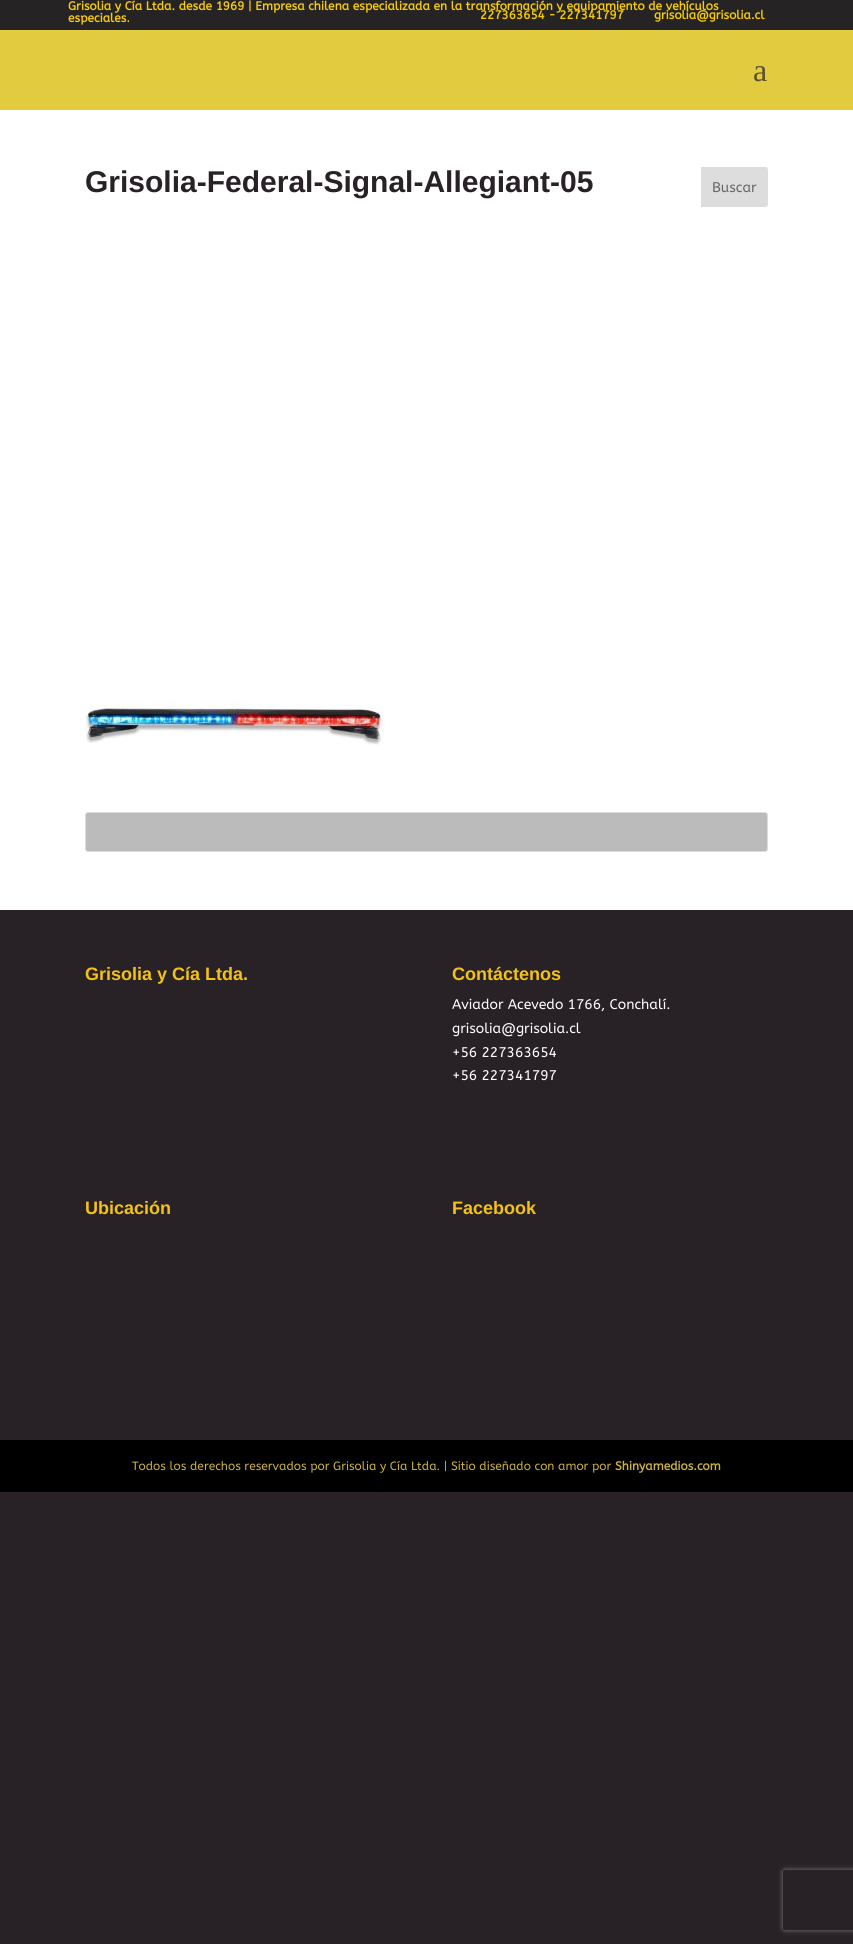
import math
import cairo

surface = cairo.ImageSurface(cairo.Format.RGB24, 853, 1944)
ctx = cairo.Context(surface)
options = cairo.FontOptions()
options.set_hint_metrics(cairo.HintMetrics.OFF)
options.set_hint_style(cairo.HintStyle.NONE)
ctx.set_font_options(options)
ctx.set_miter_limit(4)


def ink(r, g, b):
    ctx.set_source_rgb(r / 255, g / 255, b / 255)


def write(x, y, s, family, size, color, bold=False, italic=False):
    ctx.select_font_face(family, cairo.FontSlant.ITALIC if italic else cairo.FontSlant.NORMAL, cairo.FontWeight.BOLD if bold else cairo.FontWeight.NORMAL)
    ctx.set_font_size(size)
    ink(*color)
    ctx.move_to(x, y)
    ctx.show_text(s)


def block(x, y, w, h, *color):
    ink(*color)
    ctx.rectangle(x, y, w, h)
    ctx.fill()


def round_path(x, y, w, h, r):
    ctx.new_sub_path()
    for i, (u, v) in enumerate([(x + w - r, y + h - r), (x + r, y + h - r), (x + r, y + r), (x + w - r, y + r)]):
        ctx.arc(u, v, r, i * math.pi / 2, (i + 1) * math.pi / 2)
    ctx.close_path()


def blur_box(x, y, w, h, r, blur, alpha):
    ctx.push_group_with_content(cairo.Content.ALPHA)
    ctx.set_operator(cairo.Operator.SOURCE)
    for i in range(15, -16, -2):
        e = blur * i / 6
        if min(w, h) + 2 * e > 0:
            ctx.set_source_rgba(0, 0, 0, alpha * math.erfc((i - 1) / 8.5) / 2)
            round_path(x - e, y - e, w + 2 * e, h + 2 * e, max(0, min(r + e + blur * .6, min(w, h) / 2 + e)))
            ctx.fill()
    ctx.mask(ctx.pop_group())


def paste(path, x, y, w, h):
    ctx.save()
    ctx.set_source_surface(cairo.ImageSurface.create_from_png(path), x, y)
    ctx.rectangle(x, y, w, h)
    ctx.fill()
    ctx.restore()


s1 = dict(family="ABeeZee", size=12, color=(247, 203, 6), bold=True)
s2 = dict(family="Liberation Serif", size=32, color=(90, 80, 45))
s3 = dict(family="Arimo", size=30, color=(40, 34, 38), bold=True)
s4 = dict(family="ABeeZee", size=14, color=(102, 102, 102))
s5 = dict(family="Arimo", size=18, color=(244, 194, 22), bold=True)
s6 = dict(family="ABeeZee", size=14, color=(255, 255, 255))
s7 = dict(family="ABeeZee", size=12, color=(202, 176, 63))
s8 = dict(family="ABeeZee", size=12, color=(202, 176, 63), bold=True)

ink(40, 34, 38)
ctx.paint()
block(0, 0, 853, 30, 37, 35, 36)
write(68, 10, "Grisolia y Cía Ltda. desde 1969 | Empresa chilena especializada en la transformación y equipamiento de vehículos", **s1)
write(68, 22, "especiales.", **s1)
write(480, 19, "227363654 - 227341797", **s1)
write(654, 19, "grisolia@grisolia.cl", **s1)
block(0, 30, 853, 80, 227, 203, 63)
write(753, 81, "a", **s2)
block(0, 110, 853, 800, 255, 255, 255)
write(85, 192, "Grisolia-Federal-Signal-Allegiant-05", **s3)
paste("pic1.png", 85, 700, 300, 45)
ink(221, 221, 221)
ctx.new_path()
ctx.move_to(701.5, 167.5)
ctx.line_to(765, 167.5)
ctx.curve_to(766.5, 167.5, 767.5, 168.5, 767.5, 170)
ctx.line_to(767.5, 204)
ctx.curve_to(767.5, 205.5, 766.5, 206.5, 765, 206.5)
ctx.line_to(701.5, 206.5)
ctx.close_path()
ctx.fill_preserve()
ctx.set_line_width(1)
ctx.stroke()
write(712, 192, "Buscar", **s4)
ink(187, 187, 187)
round_path(85.5, 812.5, 682, 39, 2.5)
ctx.fill_preserve()
ink(221, 221, 221)
ctx.stroke()
write(85, 980, "Grisolia y Cía Ltda.", **s5)
write(452, 980, "Contáctenos", **s5)
write(452, 1009, "Aviador Acevedo 1766, Conchalí.", **s6)
write(452, 1033, "grisolia@grisolia.cl", **s6)
write(452, 1057, "+56 227363654", **s6)
write(452, 1080, "+56 227341797", **s6)
write(85, 1214, "Ubicación", **s5)
write(452, 1214, "Facebook", **s5)
block(0, 1440, 853, 52, 0, 0, 0)
write(132, 1470, "Todos los derechos reservados por Grisolia y Cía Ltda. | Sitio diseñado con amor por", **s7)
write(615, 1470, "Shinyamedios.com", **s8)
ctx.save()
ctx.set_fill_rule(cairo.FillRule.EVEN_ODD)
ctx.new_path()
ctx.move_to(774, 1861)
ctx.line_to(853, 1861)
ctx.line_to(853, 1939)
ctx.line_to(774, 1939)
ctx.close_path()
ctx.move_to(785, 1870)
ctx.line_to(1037, 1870)
ctx.curve_to(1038, 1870, 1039, 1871, 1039, 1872)
ctx.line_to(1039, 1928)
ctx.curve_to(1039, 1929, 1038, 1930, 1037, 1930)
ctx.line_to(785, 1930)
ctx.curve_to(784, 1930, 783, 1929, 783, 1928)
ctx.line_to(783, 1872)
ctx.curve_to(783, 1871, 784, 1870, 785, 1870)
ctx.close_path()
ctx.clip()
ink(128, 128, 128)
blur_box(783, 1870, 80, 60, 2, 2.5, 1)
ctx.restore()
surface.write_to_png("screenshot.png")
